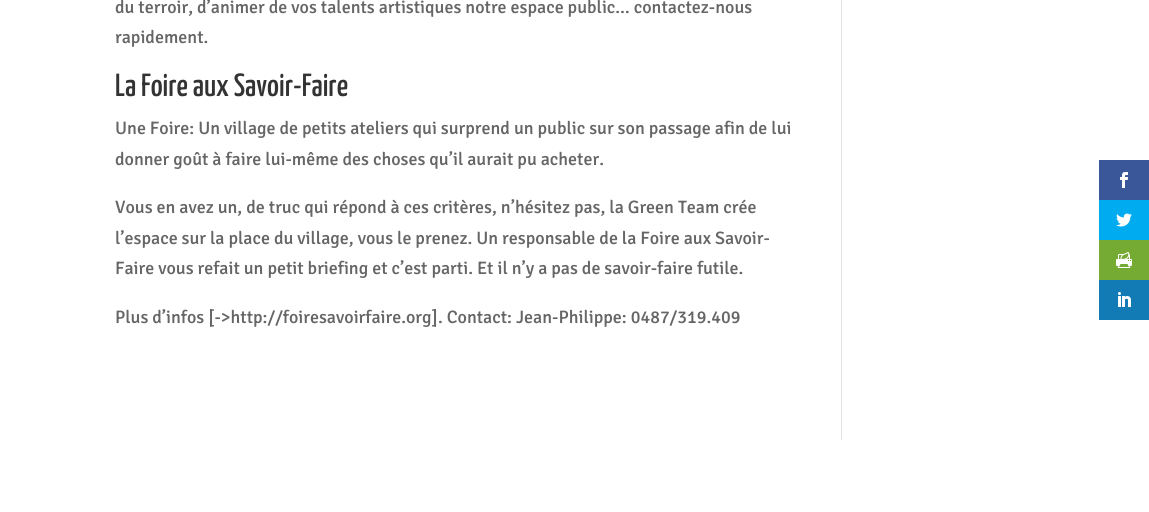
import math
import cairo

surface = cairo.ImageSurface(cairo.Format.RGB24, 1149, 512)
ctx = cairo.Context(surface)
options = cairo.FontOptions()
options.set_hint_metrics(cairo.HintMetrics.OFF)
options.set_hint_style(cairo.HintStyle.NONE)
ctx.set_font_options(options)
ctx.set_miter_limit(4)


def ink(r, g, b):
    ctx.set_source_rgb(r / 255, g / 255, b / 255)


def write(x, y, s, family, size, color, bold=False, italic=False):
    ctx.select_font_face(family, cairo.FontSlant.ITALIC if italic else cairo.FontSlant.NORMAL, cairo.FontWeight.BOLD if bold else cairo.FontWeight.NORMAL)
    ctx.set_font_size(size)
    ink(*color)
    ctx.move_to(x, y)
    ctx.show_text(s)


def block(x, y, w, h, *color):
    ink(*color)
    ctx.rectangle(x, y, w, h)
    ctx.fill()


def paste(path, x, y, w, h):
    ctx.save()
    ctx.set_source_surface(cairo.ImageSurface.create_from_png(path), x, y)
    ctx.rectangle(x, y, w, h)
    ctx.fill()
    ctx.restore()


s1 = dict(family="Signika Negative Medium", size=18, color=(102, 102, 102))
s2 = dict(family="Yanone Kaffeesatz Medium", size=32, color=(51, 51, 51))

ink(255, 255, 255)
ctx.paint()
write(115, 13, "du terroir, d’animer de vos talents artistiques notre espace public… contactez-nous", **s1)
write(115, 43, "rapidement.", **s1)
write(115, 96, "La Foire aux Savoir-Faire", **s2)
write(115, 134, "Une Foire: Un village de petits ateliers qui surprend un public sur son passage afin de lui", **s1)
write(115, 165, "donner goût à faire lui-même des choses qu’il aurait pu acheter.", **s1)
write(115, 213, "Vous en avez un, de truc qui répond à ces critères, n’hésitez pas, la Green Team crée", **s1)
write(115, 244, "l’espace sur la place du village, vous le prenez. Un responsable de la Foire aux Savoir-", **s1)
write(115, 274, "Faire vous refait un petit briefing et c’est parti. Et il n’y a pas de savoir-faire futile.", **s1)
write(115, 323, "Plus d’infos [->http://foiresavoirfaire.org]. Contact: Jean-Philippe: 0487/319.409", **s1)
block(841, 0, 1, 440, 226, 226, 226)
block(1099, 160, 50, 40, 58, 87, 154)
paste("pic1.png", 1120, 172, 8, 16)
block(1099, 200, 50, 40, 0, 171, 240)
paste("pic2.png", 1116, 213, 16, 14)
block(1099, 240, 50, 40, 117, 170, 51)
paste("pic3.png", 1116, 252, 16, 16)
block(1099, 280, 50, 40, 18, 123, 182)
paste("pic4.png", 1118, 292, 13, 15)
surface.write_to_png("screenshot.png")
